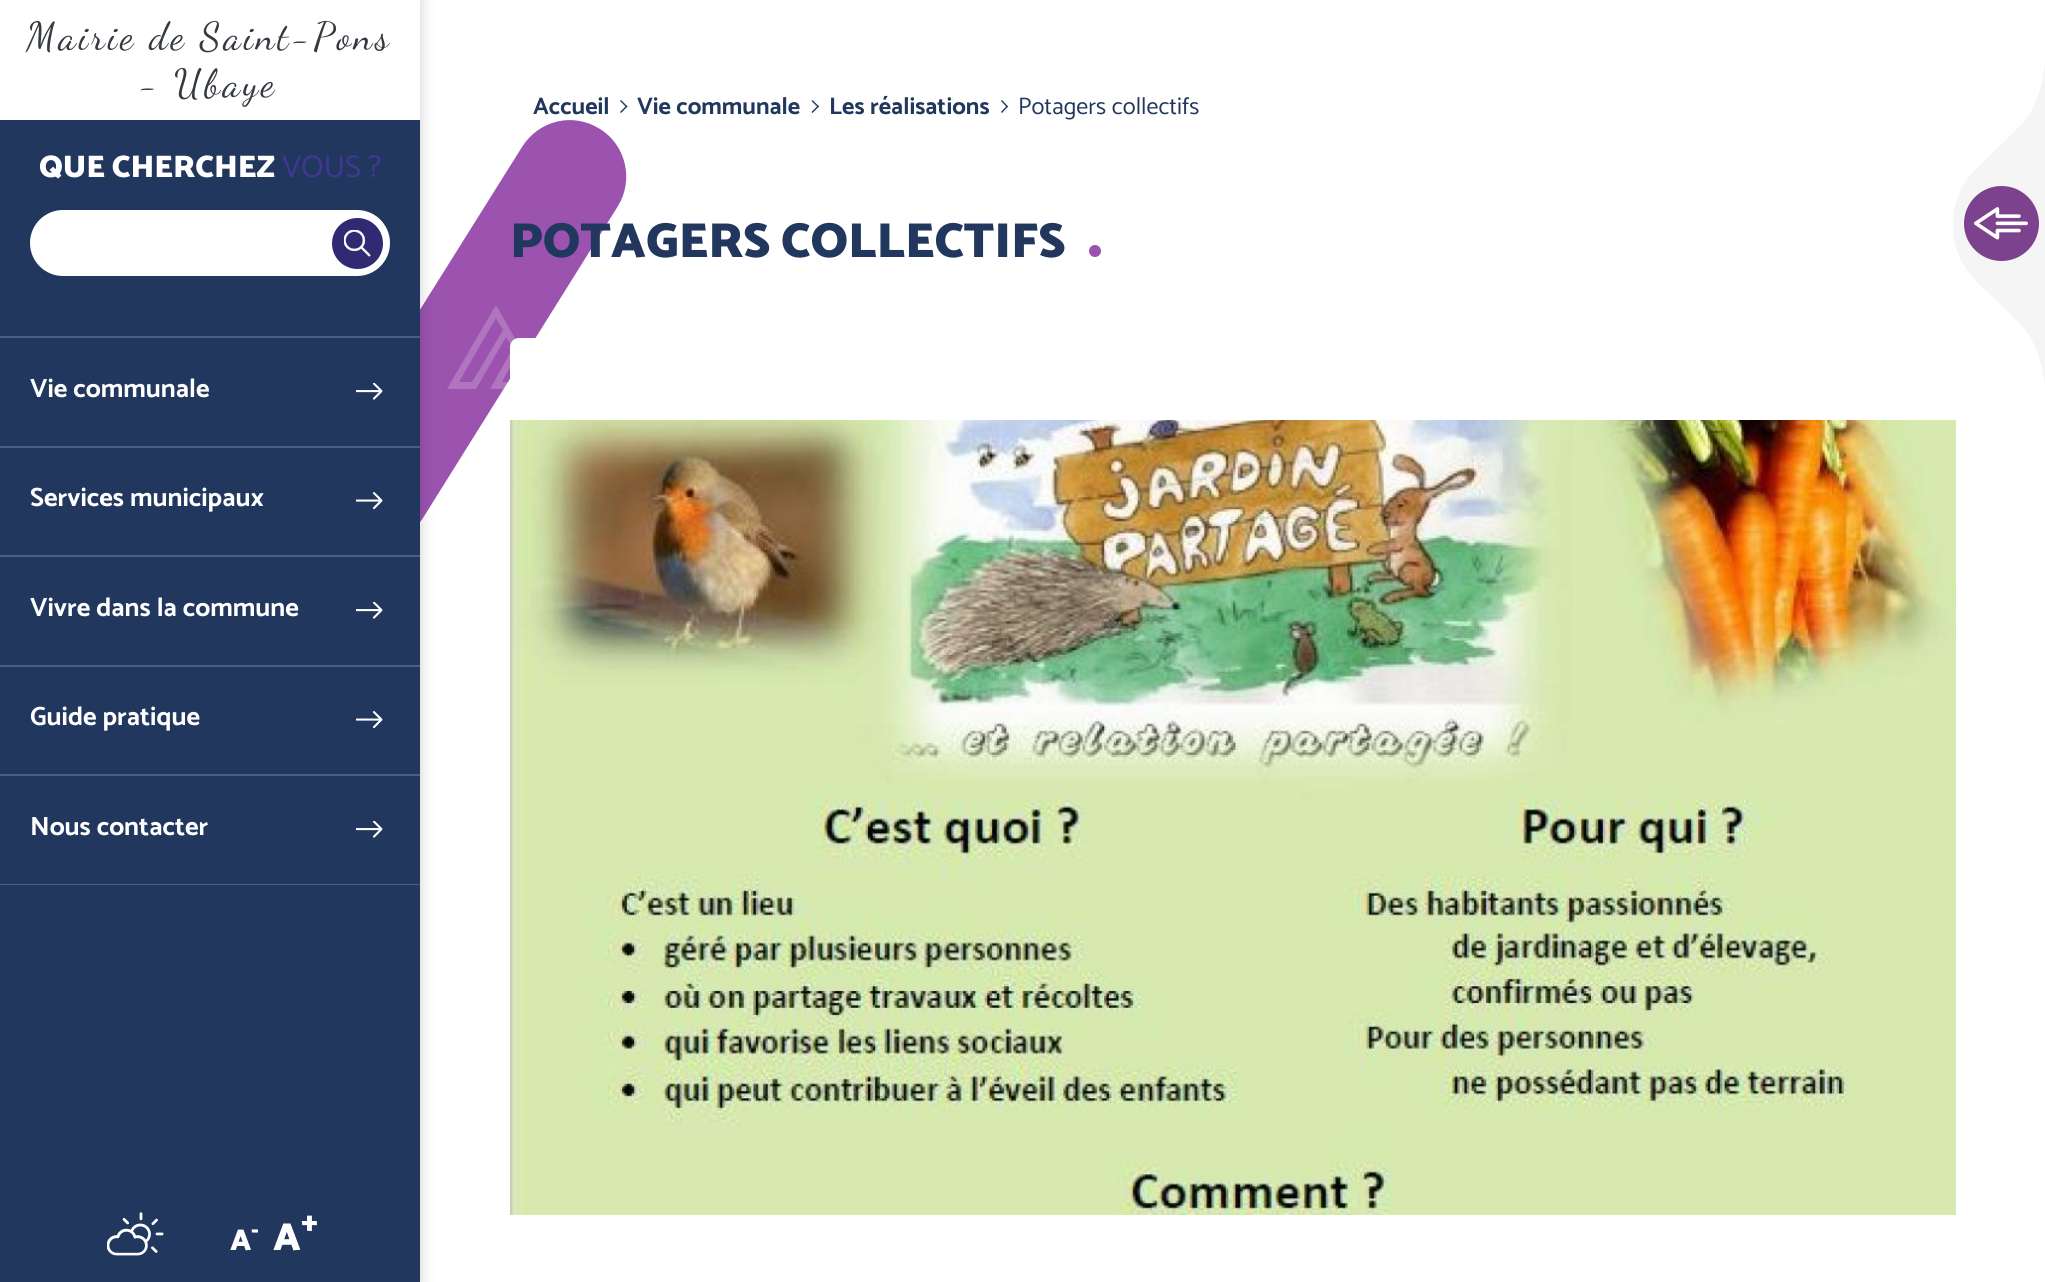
import math
import cairo

surface = cairo.ImageSurface(cairo.Format.RGB24, 2045, 1282)
ctx = cairo.Context(surface)
options = cairo.FontOptions()
options.set_hint_metrics(cairo.HintMetrics.OFF)
options.set_hint_style(cairo.HintStyle.NONE)
ctx.set_font_options(options)
ctx.set_miter_limit(4)


def ink(r, g, b):
    ctx.set_source_rgb(r / 255, g / 255, b / 255)


def write(x, y, s, family, size, color, bold=False, italic=False):
    ctx.select_font_face(family, cairo.FontSlant.ITALIC if italic else cairo.FontSlant.NORMAL, cairo.FontWeight.BOLD if bold else cairo.FontWeight.NORMAL)
    ctx.set_font_size(size)
    ink(*color)
    ctx.move_to(x, y)
    ctx.show_text(s)


def write_spaced(x, y, s, letter, word):
    ctx.move_to(x, y)
    for ch in s:
        ctx.show_text(ch)
        ctx.rel_move_to(letter + word * (ch == ' '), 0)


def block(x, y, w, h, *color):
    ink(*color)
    ctx.rectangle(x, y, w, h)
    ctx.fill()


def round_path(x, y, w, h, r):
    ctx.new_sub_path()
    for i, (u, v) in enumerate([(x + w - r, y + h - r), (x + r, y + h - r), (x + r, y + r), (x + w - r, y + r)]):
        ctx.arc(u, v, r, i * math.pi / 2, (i + 1) * math.pi / 2)
    ctx.close_path()


def blur_box(x, y, w, h, r, blur, alpha):
    ctx.push_group_with_content(cairo.Content.ALPHA)
    ctx.set_operator(cairo.Operator.SOURCE)
    for i in range(15, -16, -2):
        e = blur * i / 6
        if min(w, h) + 2 * e > 0:
            ctx.set_source_rgba(0, 0, 0, alpha * math.erfc((i - 1) / 8.5) / 2)
            round_path(x - e, y - e, w + 2 * e, h + 2 * e, max(0, min(r + e + blur * .6, min(w, h) / 2 + e)))
            ctx.fill()
    ctx.mask(ctx.pop_group())


def paste(path, x, y, w, h):
    ctx.save()
    ctx.set_source_surface(cairo.ImageSurface.create_from_png(path), x, y)
    ctx.rectangle(x, y, w, h)
    ctx.fill()
    ctx.restore()


s1 = dict(family="Catamaran Black", size=31.25, color=(255, 255, 255))
s2 = dict(family="Catamaran", size=31.25, color=(65, 55, 150))
s3 = dict(family="Catamaran", size=26.4, color=(255, 255, 255), bold=True)
s4 = dict(family="Catamaran Black", size=30, color=(255, 255, 255))
s5 = dict(family="Catamaran Black", size=22, color=(255, 255, 255))
s6 = dict(family="Catamaran Black", size=39, color=(255, 255, 255))
s7 = dict(family="Catamaran Black", size=29, color=(255, 255, 255))
s8 = dict(family="Catamaran", size=24, color=(33, 55, 93), bold=True)
s9 = dict(family="Catamaran", size=24, color=(33, 55, 93))
s10 = dict(family="Catamaran Black", size=49.25, color=(33, 55, 93))

ink(255, 255, 255)
ctx.paint()
ink(155, 83, 175)
ctx.new_path()
ctx.move_to(327, 458)
ctx.line_to(522, 147)
ctx.curve_to(539, 120, 573, 112, 600, 129)
ctx.curve_to(626, 145, 634, 180, 618, 206)
ctx.line_to(423, 518)
ctx.curve_to(406, 544, 372, 552, 345, 536)
ctx.curve_to(319, 519, 311, 485, 327, 458)
ctx.close_path()
ctx.fill()
ink(0, 0, 0)
blur_box(0, 0, 420, 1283, 0, 7.5, 0.2)
block(0, 0, 420, 120, 255, 255, 255)
ctx.select_font_face("Dancing Script")
ctx.set_font_size(39)
ink(52, 58, 64)
write_spaced(26, 49, "Mairie de Saint-Pons", 3, 0)
write_spaced(139, 96, "- Ubaye", 3, 0)
block(0, 120, 420, 1162, 33, 55, 93)
block(0, 336, 420, 2, 77, 95, 125)
write(39, 177, "QUE CHERCHEZ", **s1)
write(282, 177, "VOUS ?", **s2)
ink(255, 255, 255)
round_path(30, 210, 360, 66, 33)
ctx.fill()
ink(49, 41, 113)
ctx.arc(357.5, 243.5, 25.5, 0, 2 * math.pi)
ctx.fill()
paste("pic1.png", 344, 230, 27, 27)
block(0, 446, 420, 2, 77, 95, 125)
write(30, 397, "Vie communale", **s3)
paste("pic2.png", 356, 383, 27, 17)
block(0, 555, 420, 2, 77, 95, 125)
write(30, 506, "Services municipaux", **s3)
paste("pic3.png", 356, 492, 27, 18)
block(0, 665, 420, 2, 77, 95, 125)
write(30, 616, "Vivre dans la commune", **s3)
paste("pic2.png", 356, 602, 27, 17)
block(0, 774, 420, 2, 77, 95, 125)
write(30, 725, "Guide pratique", **s3)
paste("pic3.png", 356, 711, 27, 18)
block(0, 884, 420, 1, 77, 95, 125)
write(30, 835, "Nous contacter", **s3)
paste("pic2.png", 356, 821, 27, 17)
paste("pic4.png", 107, 1212, 57, 44)
write(230, 1250, "A", **s4)
write(251, 1237, "-", **s5)
write(273, 1250, "A", **s6)
write(301, 1231, "+", **s7)
write(533, 114, "Accueil", **s8)
ctx.new_path()
ctx.move_to(621, 100)
ctx.line_to(627.5, 106.5)
ctx.line_to(626.5, 107.5)
ctx.line_to(620, 101)
ctx.close_path()
ctx.fill()
ctx.new_path()
ctx.move_to(626.5, 105.5)
ctx.line_to(627.5, 106.5)
ctx.line_to(621, 113)
ctx.line_to(620, 112)
ctx.close_path()
ctx.fill()
write(637, 114, "Vie communale", **s8)
ctx.new_path()
ctx.move_to(812.5, 100)
ctx.line_to(819, 106.5)
ctx.line_to(818, 107.5)
ctx.line_to(811.5, 101)
ctx.close_path()
ctx.fill()
ctx.new_path()
ctx.move_to(818, 105.5)
ctx.line_to(819, 106.5)
ctx.line_to(812.5, 113)
ctx.line_to(811.5, 112)
ctx.close_path()
ctx.fill()
write(829, 114, "Les réalisations", **s8)
ctx.new_path()
ctx.move_to(1002, 100)
ctx.line_to(1008, 106.5)
ctx.line_to(1007, 107.5)
ctx.line_to(1001, 101)
ctx.close_path()
ctx.fill()
ctx.new_path()
ctx.move_to(1007, 105.5)
ctx.line_to(1008, 106.5)
ctx.line_to(1002, 113)
ctx.line_to(1001, 112)
ctx.close_path()
ctx.fill()
write(1018, 114, "Potagers collectifs", **s9)
write(510, 257, "POTAGERS COLLECTIFS", **s10)
ink(155, 83, 175)
ctx.new_path()
ctx.arc(1095, 251, 6, 0, 2 * math.pi)
ctx.fill()
ctx.set_source_rgba(1, 1, 1, 0.2)
ctx.new_path()
ctx.move_to(472, 382)
ctx.line_to(459, 382)
ctx.line_to(496, 318)
ctx.line_to(503, 330)
ctx.line_to(477, 374)
ctx.close_path()
ctx.move_to(517, 342)
ctx.line_to(496, 305)
ctx.line_to(447, 389)
ctx.line_to(476, 389)
ctx.line_to(506, 337)
ctx.line_to(513, 348)
ctx.line_to(490, 389)
ctx.line_to(544, 389)
ctx.close_path()
ctx.move_to(504, 378)
ctx.line_to(517, 355)
ctx.line_to(533, 382)
ctx.line_to(502, 382)
ctx.close_path()
ctx.fill()
ink(255, 255, 255)
round_path(510, 338, 1446, 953, 9)
ctx.fill()
paste("pic5.png", 510, 420, 1446, 795)
ink(245, 245, 245)
ctx.set_fill_rule(cairo.FillRule.EVEN_ODD)
ctx.new_path()
ctx.move_to(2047, 41)
ctx.line_to(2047, 409)
ctx.curve_to(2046, 388, 2042, 345, 2020, 324)
ctx.curve_to(1997, 301, 1985, 290, 1978, 283)
ctx.curve_to(1963, 269, 1954, 250, 1953, 230)
ctx.line_to(1953, 220)
ctx.curve_to(1954, 200, 1963, 181, 1978, 167)
ctx.curve_to(1985, 160, 1997, 149, 2020, 126)
ctx.curve_to(2042, 105, 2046, 62, 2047, 41)
ctx.close_path()
ctx.move_to(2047, 30)
ctx.line_to(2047, 41)
ctx.close_path()
ctx.move_to(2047, 420)
ctx.line_to(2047, 409)
ctx.close_path()
ctx.fill()
ink(125, 66, 141)
ctx.arc(2001.5, 223.5, 37.5, 0, 2 * math.pi)
ctx.fill()
paste("pic6.png", 1974, 207, 54, 33)
surface.write_to_png("screenshot.png")
